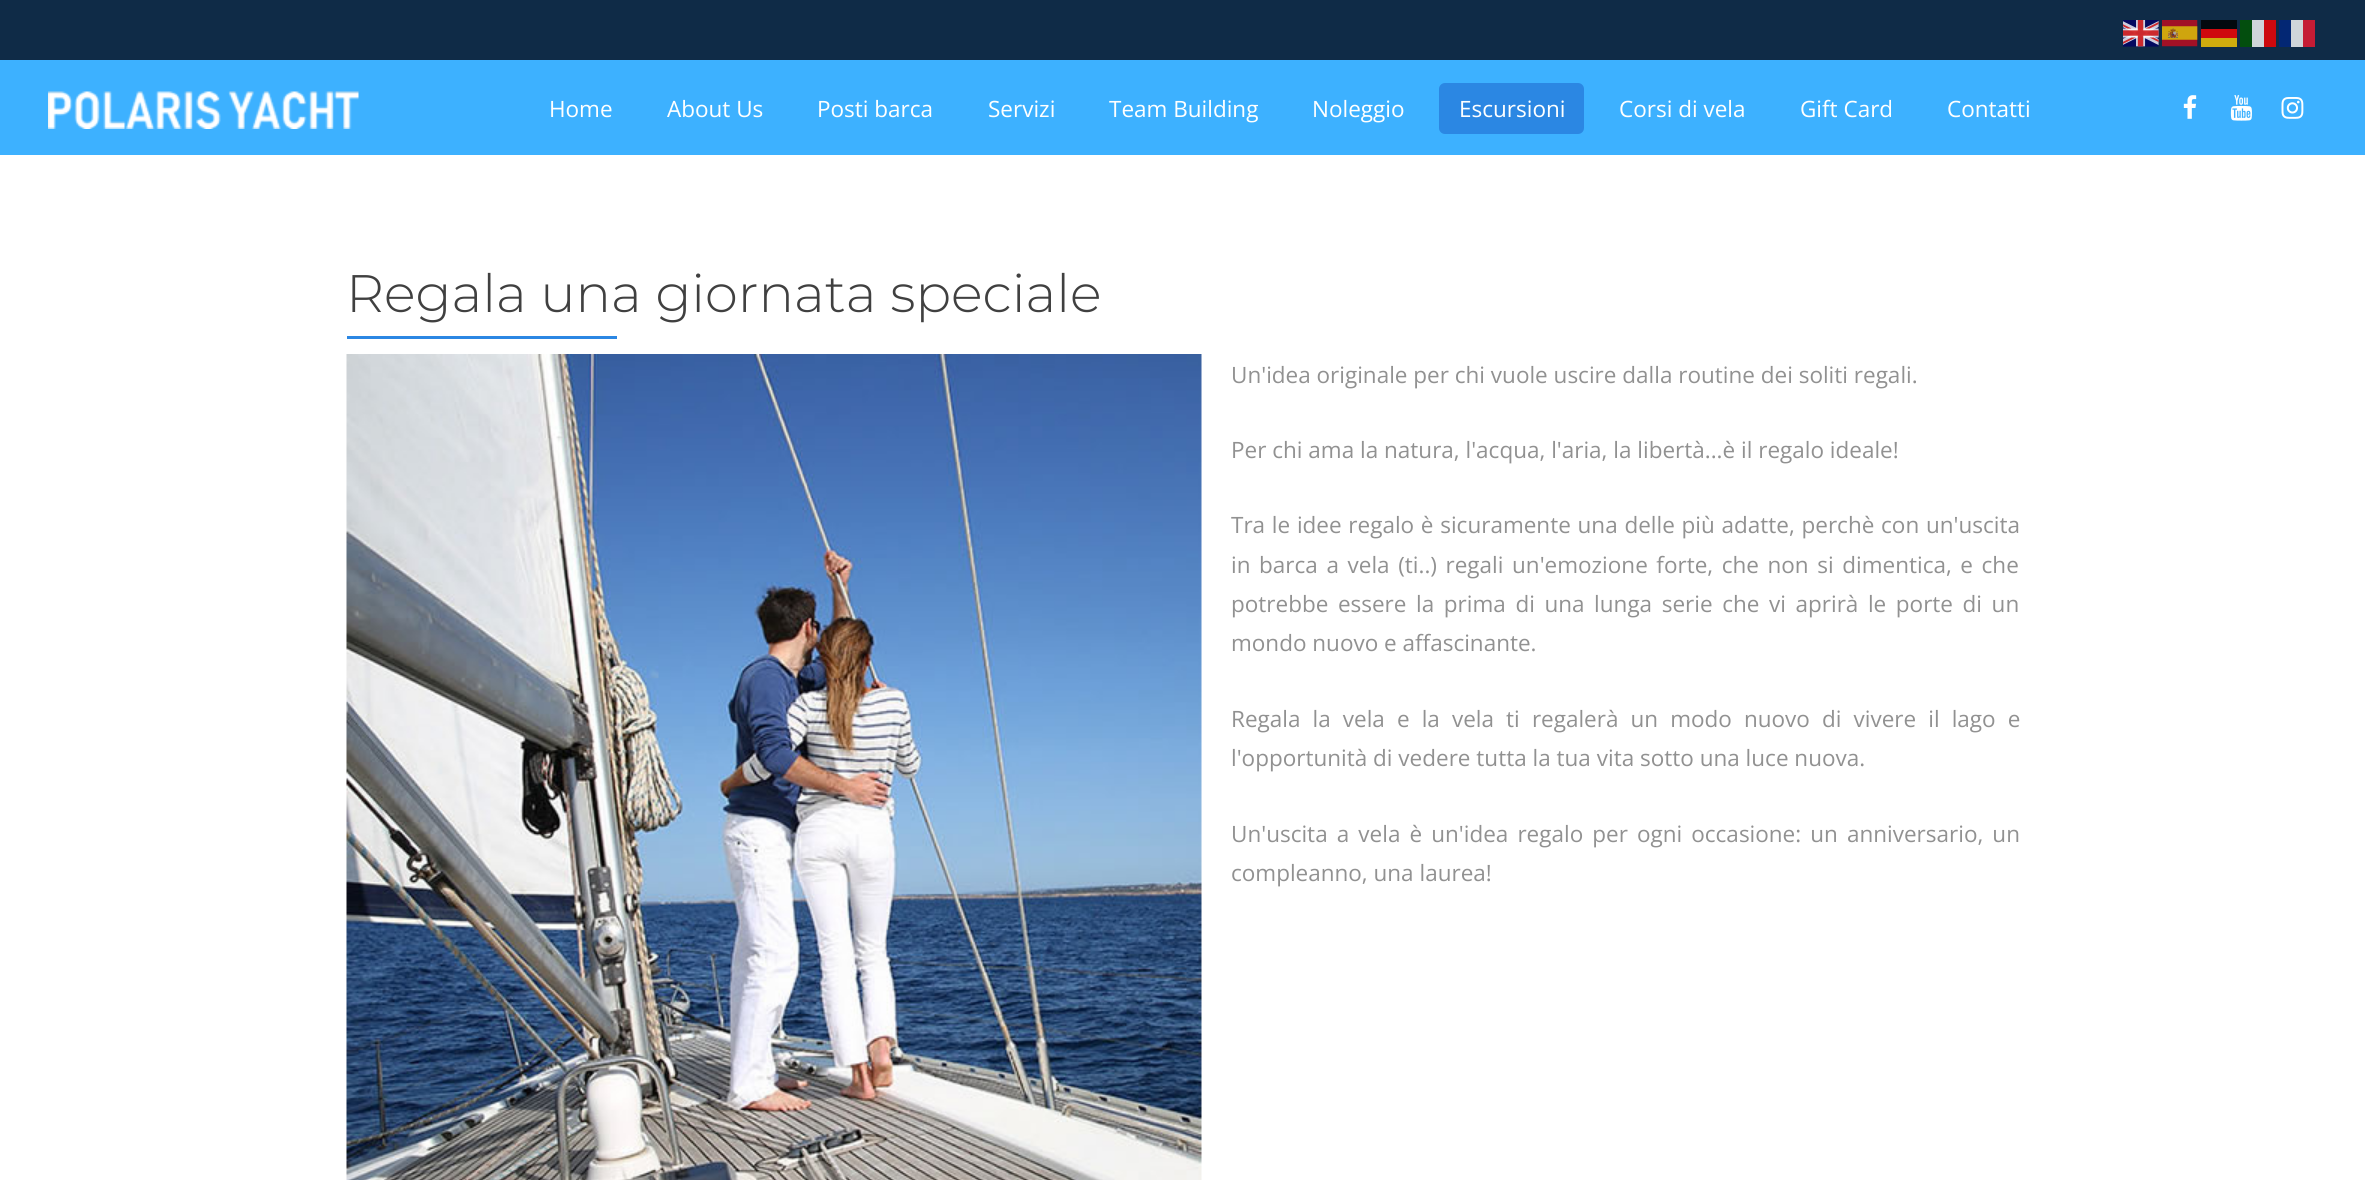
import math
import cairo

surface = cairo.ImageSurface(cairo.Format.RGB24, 2365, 1180)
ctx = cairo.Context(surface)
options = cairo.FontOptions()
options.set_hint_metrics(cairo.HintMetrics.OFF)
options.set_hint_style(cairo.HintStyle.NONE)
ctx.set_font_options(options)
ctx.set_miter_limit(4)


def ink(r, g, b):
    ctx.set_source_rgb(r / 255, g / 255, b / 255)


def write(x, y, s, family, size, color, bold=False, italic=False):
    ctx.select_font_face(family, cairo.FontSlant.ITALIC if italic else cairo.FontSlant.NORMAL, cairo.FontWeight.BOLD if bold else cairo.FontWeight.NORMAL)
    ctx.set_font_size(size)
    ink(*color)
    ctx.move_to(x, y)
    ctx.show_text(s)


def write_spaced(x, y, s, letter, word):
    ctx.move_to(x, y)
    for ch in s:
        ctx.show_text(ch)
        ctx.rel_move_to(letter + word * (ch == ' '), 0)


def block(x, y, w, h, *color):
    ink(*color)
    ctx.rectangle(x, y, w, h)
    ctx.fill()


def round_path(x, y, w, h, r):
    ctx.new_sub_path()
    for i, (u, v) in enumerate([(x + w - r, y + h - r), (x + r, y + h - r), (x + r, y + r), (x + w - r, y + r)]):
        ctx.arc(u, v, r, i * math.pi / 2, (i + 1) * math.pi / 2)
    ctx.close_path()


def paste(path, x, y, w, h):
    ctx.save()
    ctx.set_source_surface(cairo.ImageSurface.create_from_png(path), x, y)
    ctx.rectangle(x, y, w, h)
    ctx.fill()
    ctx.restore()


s1 = dict(family="Open Sans", size=22.5, color=(255, 255, 255))
s2 = dict(family="Montserrat Light", size=52.75, color=(64, 64, 64))
s3 = dict(family="Open Sans", size=22.5, color=(145, 145, 145))

ink(61, 177, 255)
ctx.paint()
block(0, 0, 2365, 60, 15, 43, 71)
paste("pic1.png", 2123, 20, 36, 27)
paste("pic2.png", 2162, 20, 36, 27)
block(2201, 20, 36, 9, 3, 9, 14)
block(2240, 20, 12, 27, 3, 78, 14)
block(2252, 20, 12, 27, 207, 213, 218)
block(2264, 20, 12, 27, 205, 9, 14)
block(2279, 20, 12, 27, 3, 39, 116)
block(2291, 20, 12, 27, 207, 213, 218)
block(2303, 20, 12, 27, 197, 28, 53)
block(2201, 29, 36, 9, 207, 9, 14)
block(2201, 38, 36, 9, 207, 172, 14)
paste("pic3.png", 48, 91, 311, 38)
write(549, 117, "Home", **s1)
write(667, 117, "About Us", **s1)
write(817, 117, "Posti barca", **s1)
write(988, 117, "Servizi", **s1)
write(1109, 117, "Team Building", **s1)
write(1312, 117, "Noleggio", **s1)
ink(43, 135, 227)
round_path(1439, 83, 145, 51, 6)
ctx.fill()
write(1459, 117, "Escursioni", **s1)
write(1619, 117, "Corsi di vela", **s1)
write(1800, 117, "Gift Card", **s1)
write(1947, 117, "Contatti", **s1)
paste("pic4.png", 2183, 95, 14, 24)
paste("pic5.png", 2230, 95, 22, 26)
paste("pic6.png", 2281, 97, 23, 22)
block(0, 155, 2365, 1025, 255, 255, 255)
write(346, 312, "Regala una giornata speciale", **s2)
block(347, 336, 270, 3, 43, 135, 227)
paste("pic7.png", 346, 354, 856, 826)
write(1231, 383, "Un'idea originale per chi vuole uscire dalla routine dei soliti regali.", **s3)
write(1231, 458, "Per chi ama la natura, l'acqua, l'aria, la libertà...è il regalo ideale!", **s3)
write_spaced(1231, 533, "Tra le idee regalo è sicuramente una delle più adatte, perchè con un'uscita", 0, 0.9)
write_spaced(1231, 573, "in barca a vela (ti..) regali un'emozione forte, che non si dimentica, e che", 0, 2.75)
write_spaced(1231, 612, "potrebbe essere la prima di una lunga serie che vi aprirà le porte di un", 0, 3.75)
write(1231, 651, "mondo nuovo e affascinante.", **s3)
write_spaced(1231, 727, "Regala la vela e la vela ti regalerà un modo nuovo di vivere il lago e", 0, 6.25)
write(1231, 766, "l'opportunità di vedere tutta la tua vita sotto una luce nuova.", **s3)
write_spaced(1231, 842, "Un'uscita a vela è un'idea regalo per ogni occasione: un anniversario, un", 0, 3.25)
write(1231, 881, "compleanno, una laurea!", **s3)
surface.write_to_png("screenshot.png")
